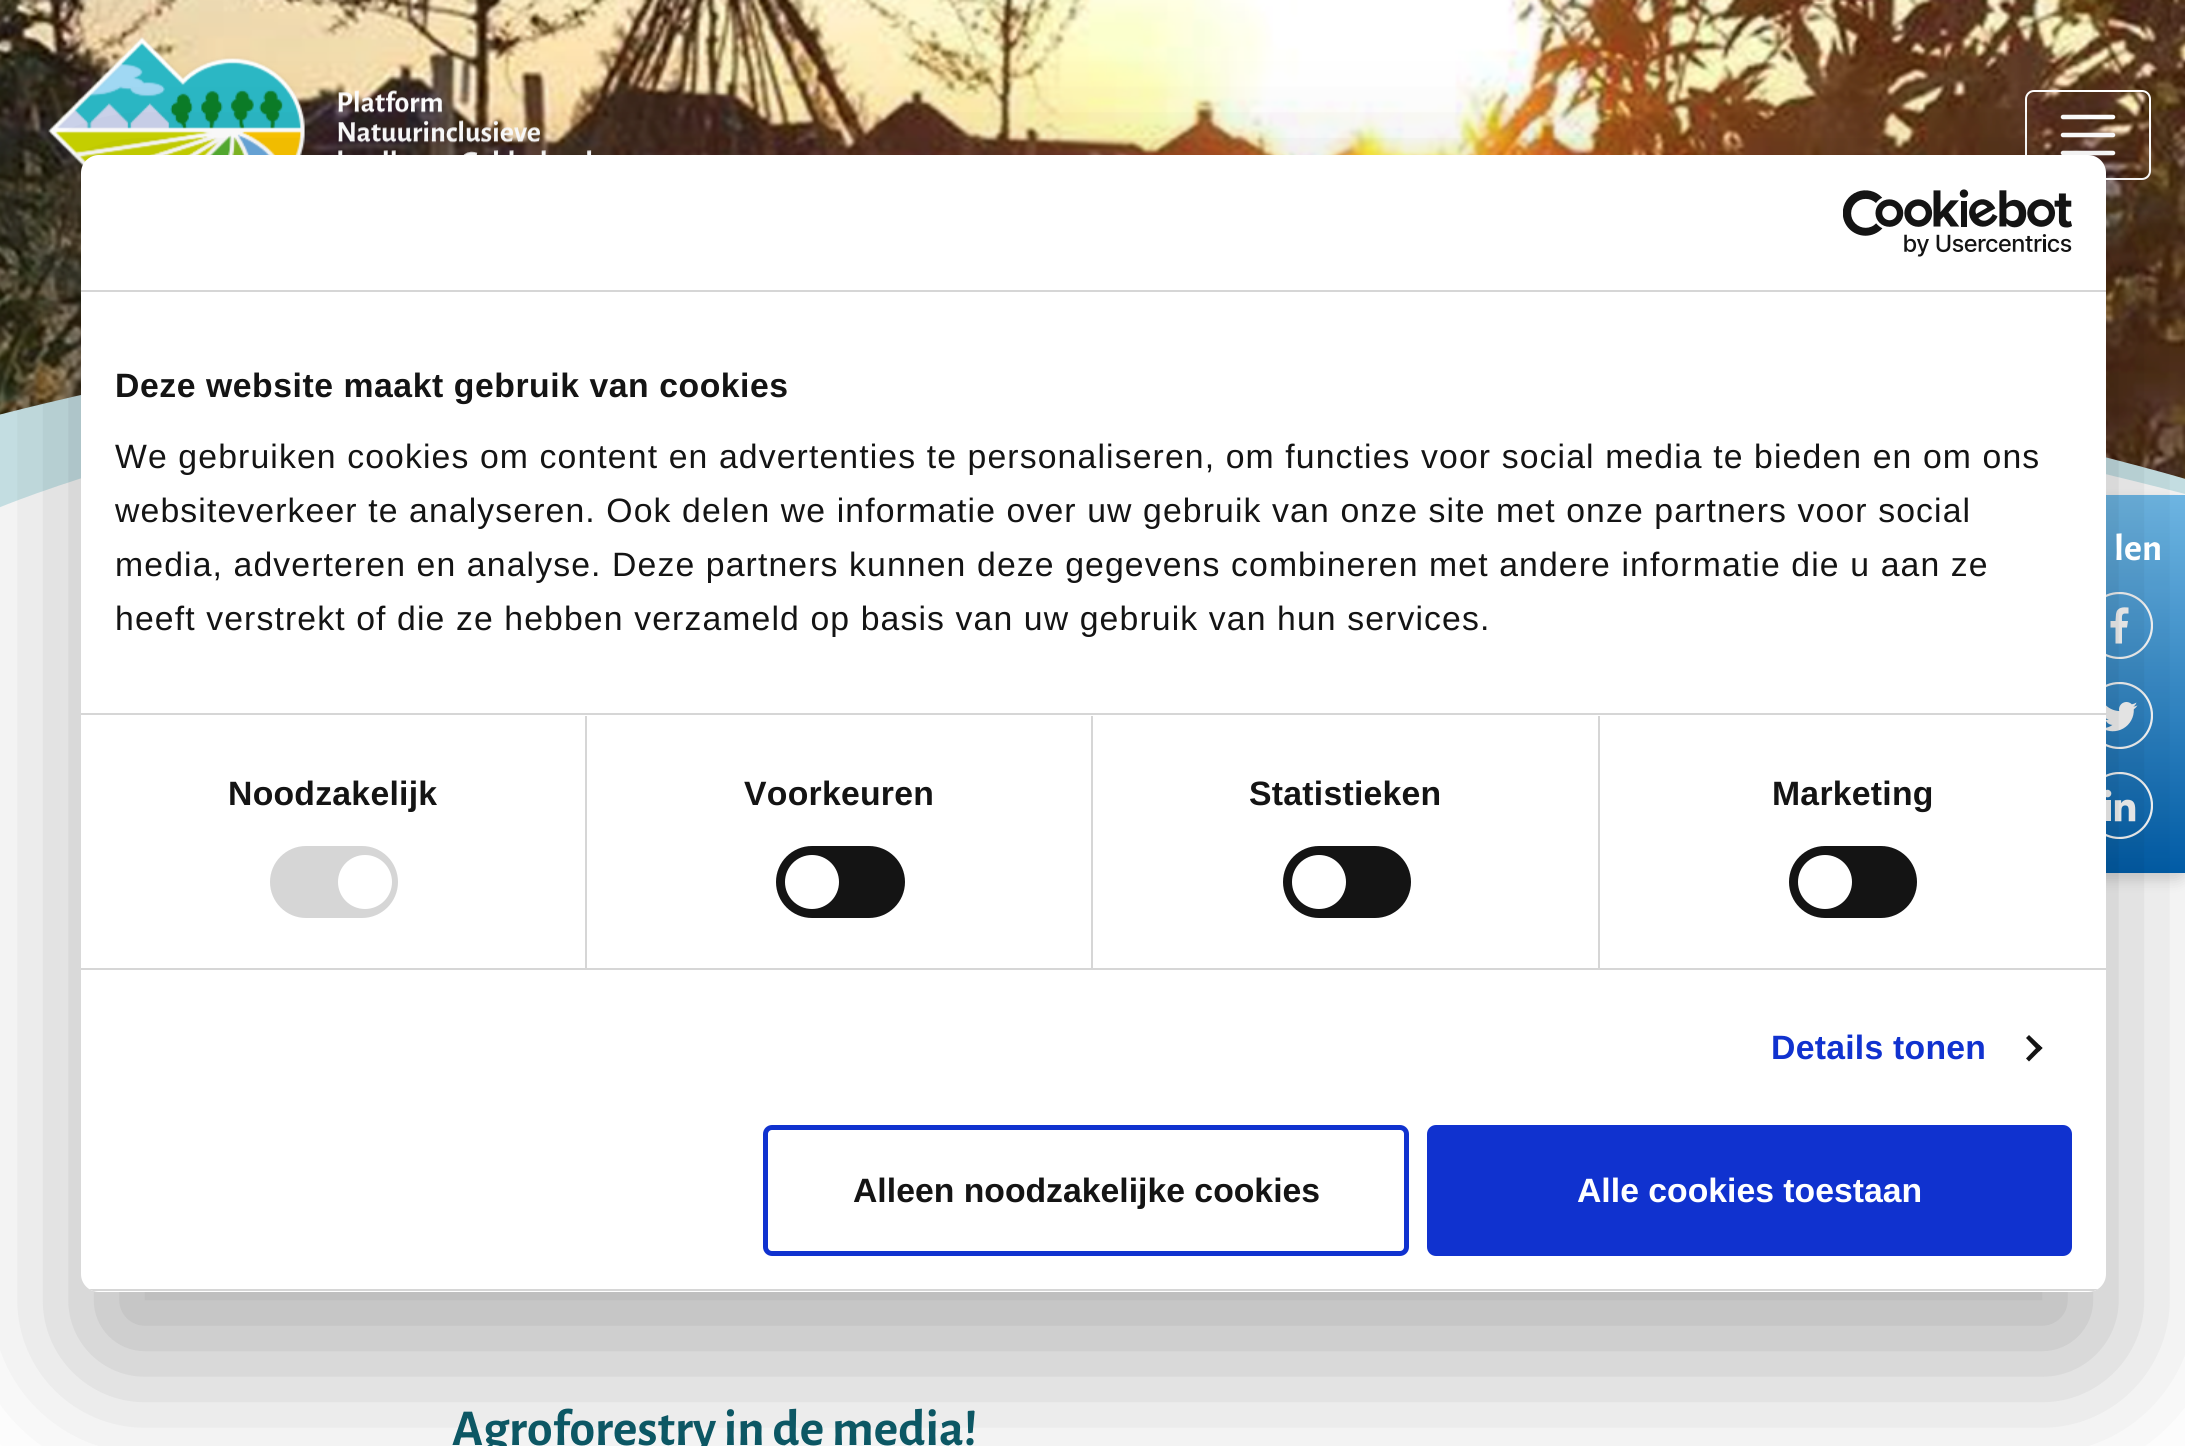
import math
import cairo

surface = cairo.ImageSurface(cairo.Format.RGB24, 2185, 1446)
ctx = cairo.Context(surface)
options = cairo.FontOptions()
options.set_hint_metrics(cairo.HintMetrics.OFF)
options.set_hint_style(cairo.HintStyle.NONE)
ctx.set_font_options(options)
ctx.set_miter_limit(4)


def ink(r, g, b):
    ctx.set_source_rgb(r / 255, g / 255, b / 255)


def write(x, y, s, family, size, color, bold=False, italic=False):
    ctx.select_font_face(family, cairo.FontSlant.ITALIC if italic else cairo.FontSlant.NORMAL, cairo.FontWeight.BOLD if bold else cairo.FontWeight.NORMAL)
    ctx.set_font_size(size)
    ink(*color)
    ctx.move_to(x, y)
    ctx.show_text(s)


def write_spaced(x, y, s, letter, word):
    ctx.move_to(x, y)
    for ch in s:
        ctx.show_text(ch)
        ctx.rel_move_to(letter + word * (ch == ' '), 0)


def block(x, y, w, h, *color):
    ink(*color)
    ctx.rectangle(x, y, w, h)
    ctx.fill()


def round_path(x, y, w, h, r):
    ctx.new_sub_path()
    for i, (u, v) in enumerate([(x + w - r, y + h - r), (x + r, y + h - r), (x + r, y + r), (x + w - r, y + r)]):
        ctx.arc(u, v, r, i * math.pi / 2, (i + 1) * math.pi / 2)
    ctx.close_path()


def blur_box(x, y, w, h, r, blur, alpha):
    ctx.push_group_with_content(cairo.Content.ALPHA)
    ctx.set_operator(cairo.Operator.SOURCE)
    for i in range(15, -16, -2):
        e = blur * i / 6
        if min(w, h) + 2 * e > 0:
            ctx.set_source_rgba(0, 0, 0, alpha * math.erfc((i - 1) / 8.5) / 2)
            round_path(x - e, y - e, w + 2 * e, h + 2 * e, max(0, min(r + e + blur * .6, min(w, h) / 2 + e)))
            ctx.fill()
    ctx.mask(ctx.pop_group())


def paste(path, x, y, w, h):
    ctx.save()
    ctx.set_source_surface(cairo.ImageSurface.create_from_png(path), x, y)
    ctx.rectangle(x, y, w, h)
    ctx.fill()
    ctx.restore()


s1 = dict(family="Liberation Sans", size=33.75, color=(20, 20, 20), bold=True)
s2 = dict(family="Liberation Sans", size=33.75, color=(255, 255, 255), bold=True)
s3 = dict(family="Alegreya Sans", size=38, color=(255, 255, 255), bold=True)
s4 = dict(family="Alegreya Sans", size=51.75, color=(12, 87, 100), bold=True)

ink(255, 255, 255)
ctx.paint()
paste("pic6.png", 0, 0, 2185, 507)
paste("pic1.png", 48, 37, 258, 137)
paste("pic2.png", 337, 90, 255, 65)
round_path(2026, 91, 124, 88, 8)
ink(255, 255, 255)
ctx.stroke()
ctx.new_path()
ctx.move_to(2063, 117)
ctx.line_to(2113, 117)
ctx.move_to(2063, 135)
ctx.line_to(2113, 135)
ctx.move_to(2063, 153)
ctx.line_to(2113, 153)
ctx.set_line_width(4.5)
ctx.set_line_cap(cairo.LineCap.ROUND)
ctx.stroke()
ctx.new_path()
ctx.move_to(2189, 494)
ctx.line_to(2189, 508)
ctx.line_to(-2, 508)
ctx.line_to(-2, 507)
ctx.curve_to(-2, 507, 847, 146, 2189, 494)
ctx.close_path()
ctx.fill()
ink(205, 232, 236)
ctx.new_path()
ctx.move_to(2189, 495)
ctx.line_to(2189, 480)
ctx.curve_to(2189, 480, 1068, 141, -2, 415)
ctx.line_to(-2, 508)
ctx.curve_to(-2, 508, 847, 147, 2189, 495)
ctx.close_path()
ctx.fill()
ink(0, 0, 0)
blur_box(2052, 502, 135, 378, 11, 7, 0.15)
gradient = cairo.LinearGradient(2120, 495, 2120, 873)
gradient.add_color_stop_rgba(0, 0.451, 0.745, 0.929, 1)
gradient.add_color_stop_rgba(1, 0.004, 0.376, 0.678, 1)
ctx.set_source(gradient)
ctx.rectangle(2106, 495, 79, 378)
ctx.fill()
ctx.save()
ctx.rectangle(2086, 592, 67, 67)
ctx.clip()
ctx.arc(2119.5, 625.5, 32.5, 0, 2 * math.pi)
ink(255, 255, 255)
ctx.set_line_width(2.2)
ctx.set_line_cap(cairo.LineCap.BUTT)
ctx.stroke()
ctx.restore()
ink(255, 255, 255)
ctx.new_path()
ctx.move_to(2125, 613.5)
ctx.line_to(2128.5, 613.5)
ctx.line_to(2128.5, 607.5)
ctx.curve_to(2123, 607, 2117, 607, 2116, 614)
ctx.line_to(2115.5, 621)
ctx.line_to(2110.5, 621)
ctx.line_to(2110.5, 627.5)
ctx.line_to(2115.5, 627.5)
ctx.line_to(2115.5, 643.5)
ctx.line_to(2122, 643.5)
ctx.line_to(2122, 627.5)
ctx.line_to(2127, 627.5)
ctx.line_to(2128, 621)
ctx.line_to(2122, 621)
ctx.curve_to(2122, 618, 2121, 613.5, 2125, 613.5)
ctx.close_path()
ctx.fill()
paste("pic4.png", 2106, 682, 47, 67)
paste("pic5.png", 2106, 772, 47, 67)
ink(0, 0, 0)
blur_box(81, 227, 2025, 1137, 18, 76.5, 0.3)
ink(255, 255, 255)
round_path(81, 155, 2025, 1137, 18)
ctx.fill()
block(81, 290, 2025, 2, 214, 214, 214)
paste("pic3.png", 1843, 189, 229, 68)
block(81, 713, 2025, 2, 214, 214, 214)
ctx.select_font_face("Liberation Sans", cairo.FontSlant.NORMAL, cairo.FontWeight.BOLD)
ctx.set_font_size(33.75)
ink(20, 20, 20)
write_spaced(115, 397, "Deze website maakt gebruik van cookies", 0.55, 0)
ctx.select_font_face("Liberation Sans")
write_spaced(115, 468, "We gebruiken cookies om content en advertenties te personaliseren, om functies voor social media te bieden en om ons", 1.12, 0)
write_spaced(115, 522, "websiteverkeer te analyseren. Ook delen we informatie over uw gebruik van onze site met onze partners voor social", 1.12, 0)
write_spaced(115, 576, "media, adverteren en analyse. Deze partners kunnen deze gegevens combineren met andere informatie die u aan ze", 1.12, 0)
write_spaced(115, 630, "heeft verstrekt of die ze hebben verzameld op basis van uw gebruik van hun services.", 1.12, 0)
block(81, 968, 2025, 2, 214, 214, 214)
block(585, 716, 2, 252, 214, 214, 214)
ctx.select_font_face("Liberation Sans", cairo.FontSlant.NORMAL, cairo.FontWeight.BOLD)
ink(20, 20, 20)
write_spaced(228, 805, "Noodzakelijk", 0.25, 0)
ink(214, 214, 214)
round_path(270, 846, 128, 72, 36)
ctx.fill()
ink(255, 255, 255)
ctx.arc(365, 882, 27, 0, 2 * math.pi)
ctx.fill()
block(1091, 716, 2, 252, 214, 214, 214)
ink(20, 20, 20)
write_spaced(744, 805, "Voorkeuren", 0.25, 0)
round_path(776, 846, 129, 72, 36)
ctx.fill()
ink(255, 255, 255)
ctx.arc(812, 882, 27, 0, 2 * math.pi)
ctx.fill()
block(1598, 716, 2, 252, 214, 214, 214)
ink(20, 20, 20)
write_spaced(1249, 805, "Statistieken", 0.25, 0)
round_path(1283, 846, 128, 72, 36)
ctx.fill()
ink(255, 255, 255)
ctx.arc(1319, 882, 27, 0, 2 * math.pi)
ctx.fill()
ink(20, 20, 20)
write_spaced(1772, 805, "Marketing", 0.25, 0)
round_path(1789, 846, 128, 72, 36)
ctx.fill()
ink(255, 255, 255)
ctx.arc(1825, 882, 27, 0, 2 * math.pi)
ctx.fill()
ink(16, 50, 207)
write_spaced(1771, 1059, "Details tonen", 0.25, 0)
ink(20, 20, 20)
ctx.new_path()
ctx.move_to(2029, 1035)
ctx.line_to(2042.5, 1048)
ctx.line_to(2039, 1051.5)
ctx.line_to(2026, 1038)
ctx.close_path()
ctx.fill()
ctx.new_path()
ctx.move_to(2039, 1045)
ctx.line_to(2042.5, 1048)
ctx.line_to(2029, 1061.5)
ctx.line_to(2026, 1058.5)
ctx.close_path()
ctx.fill()
ctx.save()
round_path(81, 155, 2025, 1137, 18)
ctx.clip()
block(81, 1289, 2025, 2, 214, 214, 214)
ctx.restore()
round_path(765.5, 1127.5, 641, 126, 6.5)
ink(16, 50, 207)
ctx.set_line_width(5)
ctx.set_line_cap(cairo.LineCap.BUTT)
ctx.stroke()
write(853, 1202, "Alleen noodzakelijke cookies", **s1)
ink(16, 50, 207)
round_path(1429.5, 1127.5, 640, 126, 6.5)
ctx.fill_preserve()
ctx.stroke()
write(1577, 1202, "Alle cookies toestaan", **s2)
write(2114, 560, "len", **s3)
write(452, 1445, "Agroforestry in de media!", **s4)
surface.write_to_png("screenshot.png")
